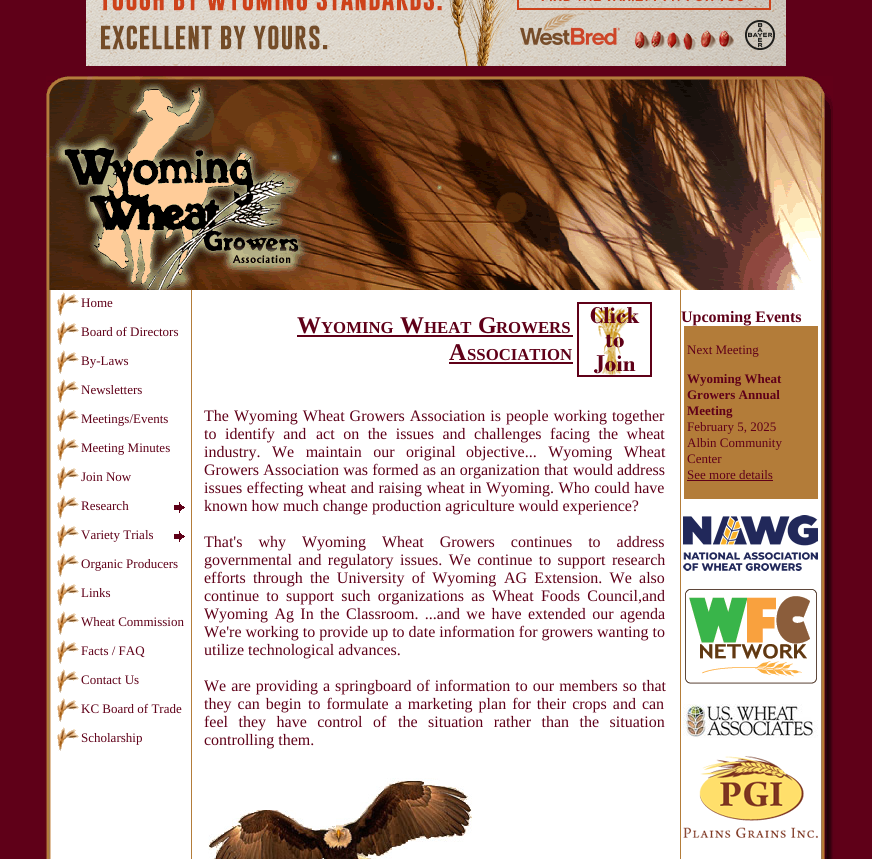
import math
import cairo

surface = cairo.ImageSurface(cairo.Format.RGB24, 872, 859)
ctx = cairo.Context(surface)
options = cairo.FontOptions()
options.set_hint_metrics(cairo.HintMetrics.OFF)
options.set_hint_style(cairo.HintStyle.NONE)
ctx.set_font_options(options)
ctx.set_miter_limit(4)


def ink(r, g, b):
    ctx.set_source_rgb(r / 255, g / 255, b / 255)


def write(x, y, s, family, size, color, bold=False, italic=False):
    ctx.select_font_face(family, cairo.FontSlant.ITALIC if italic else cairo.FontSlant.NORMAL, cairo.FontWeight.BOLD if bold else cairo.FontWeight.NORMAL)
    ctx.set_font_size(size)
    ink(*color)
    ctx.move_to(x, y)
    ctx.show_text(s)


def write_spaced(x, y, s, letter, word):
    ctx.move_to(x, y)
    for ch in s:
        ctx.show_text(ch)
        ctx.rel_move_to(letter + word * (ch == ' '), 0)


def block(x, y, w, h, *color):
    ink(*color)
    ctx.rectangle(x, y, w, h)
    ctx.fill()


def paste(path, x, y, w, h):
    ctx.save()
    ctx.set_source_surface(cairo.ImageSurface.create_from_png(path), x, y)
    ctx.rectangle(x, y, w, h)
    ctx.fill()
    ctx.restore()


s1 = dict(family="Liberation Serif", size=13, color=(95, 0, 24))
s2 = dict(family="Liberation Serif", size=24, color=(95, 0, 24), bold=True)
s3 = dict(family="Liberation Serif", size=16.75, color=(95, 0, 24), bold=True)
s4 = dict(family="Liberation Serif", size=16, color=(95, 0, 24))
s5 = dict(family="Liberation Serif", size=16, color=(95, 0, 24), bold=True)
s6 = dict(family="Liberation Serif", size=13, color=(95, 0, 24), bold=True)

ink(95, 0, 24)
ctx.paint()
paste("pic1.png", 86, 0, 700, 66)
paste("pic2.png", 46, 76, 787, 214)
paste("pic3.png", 45, 290, 6, 569)
block(51, 290, 140, 569, 255, 255, 255)
block(191, 290, 1, 569, 179, 124, 57)
paste("pic4.png", 57, 292, 22, 24)
write(81, 307, "Home", **s1)
paste("pic4.png", 57, 321, 22, 24)
write(81, 336, "Board of Directors", **s1)
paste("pic4.png", 57, 350, 22, 24)
write(81, 365, "By-Laws", **s1)
paste("pic4.png", 57, 379, 22, 24)
write(81, 394, "Newsletters", **s1)
paste("pic4.png", 57, 408, 22, 24)
write(81, 423, "Meetings/Events", **s1)
paste("pic4.png", 57, 437, 22, 24)
write(81, 452, "Meeting Minutes", **s1)
paste("pic4.png", 57, 466, 22, 24)
write(81, 481, "Join Now", **s1)
paste("pic4.png", 57, 495, 22, 24)
write(81, 510, "Research", **s1)
paste("pic5.png", 174, 502, 11, 11)
paste("pic4.png", 57, 524, 22, 24)
write(81, 539, "Variety Trials", **s1)
paste("pic5.png", 174, 531, 11, 11)
paste("pic4.png", 57, 553, 22, 24)
write(81, 568, "Organic Producers", **s1)
paste("pic4.png", 57, 582, 22, 24)
write(81, 597, "Links", **s1)
paste("pic4.png", 57, 611, 22, 24)
write(81, 626, "Wheat Commission", **s1)
paste("pic4.png", 57, 640, 22, 24)
write(81, 655, "Facts / FAQ", **s1)
paste("pic4.png", 57, 669, 22, 24)
write(81, 684, "Contact Us", **s1)
paste("pic4.png", 57, 698, 22, 24)
write(81, 713, "KC Board of Trade", **s1)
paste("pic4.png", 57, 727, 22, 24)
write(81, 742, "Scholarship", **s1)
block(192, 290, 488, 569, 255, 255, 255)
write(297, 333, "W", **s2)
write(321, 333, "YOMING", **s3)
block(297, 335, 276, 2, 95, 0, 24)
write(400, 333, "W", **s2)
write(424, 333, "HEAT", **s3)
write(478, 333, "G", **s2)
write(496, 333, "ROWERS", **s3)
write(449, 360, "A", **s2)
write(467, 360, "SSOCIATION", **s3)
block(449, 362, 124, 2, 95, 0, 24)
paste("pic6.png", 577, 302, 75, 75)
ctx.select_font_face("Liberation Serif")
ctx.set_font_size(16)
write_spaced(204, 421, "The Wyoming Wheat Growers Association is people working together", 0, 1)
write_spaced(204, 439, "to identify and", 0, 4.5)
write_spaced(316, 439, "act on the issues and challenges facing the wheat", 0, 4.5)
write_spaced(204, 457, "industry. We maintain our original", 0, 7.5)
write_spaced(466, 457, "objective... Wyoming Wheat", 0, 7.5)
write_spaced(204, 475, "Growers Association was formed as an organization that", 0, 0.25)
write(573, 475, "would address", **s4)
write_spaced(204, 493, "issues effecting wheat and raising wheat in Wyoming. Who could have", 0, 0.5)
write(204, 511, "known how much change production agriculture would experience?", **s4)
write_spaced(204, 547, "That's why Wyoming Wheat Growers continues to address", 0, 12)
write_spaced(204, 565, "governmental and regulatory", 0, 2.4)
write_spaced(400, 565, "issues. We continue to support research", 0, 2.4)
write_spaced(204, 583, "efforts through the University of Wyoming", 0, 3.25)
write_spaced(504, 583, "AG Extension. We also", 0, 3.25)
write_spaced(204, 601, "continue to support such organizations as Wheat Foods Council,and", 0, 3.25)
write_spaced(204, 619, "Wyoming Ag In the Classroom. ...and we have extended our agenda", 0, 2.4)
write(204, 637, "We're working to provide up to date information for growers wanting to", **s4)
write(204, 655, "utilize technological advances.", **s4)
write_spaced(204, 691, "We are providing a springboard of information to our members so that", 0, 1)
write_spaced(204, 709, "they can begin", 0, 2)
write_spaced(308, 709, "to formulate a marketing plan for their crops and can", 0, 2)
write_spaced(204, 727, "feel they have control of", 0, 6.5)
write_spaced(398, 727, "the situation rather than the situation", 0, 6.5)
write(204, 745, "controlling them.", **s4)
paste("pic7.png", 208, 778, 264, 81)
block(681, 290, 140, 569, 255, 255, 255)
block(680, 290, 1, 569, 179, 124, 57)
write(681, 322, "Upcoming Events", **s5)
block(684, 326, 134, 173, 179, 124, 57)
write(687, 354, "Next Meeting", **s1)
write(687, 383, "Wyoming Wheat", **s6)
write(687, 399, "Growers Annual", **s6)
write(687, 415, "Meeting", **s6)
write(687, 431, "February 5, 2025", **s1)
write(687, 447, "Albin Community", **s1)
write(687, 463, "Center", **s1)
write(687, 479, "See more details", **s1)
block(687, 480, 86, 1, 95, 0, 24)
paste("pic8.png", 683, 515, 135, 56)
paste("pic9.png", 685, 589, 132, 95)
paste("pic10.png", 683, 704, 135, 34)
paste("pic11.png", 683, 756, 135, 82)
paste("pic12.png", 821, 290, 15, 569)
surface.write_to_png("screenshot.png")
